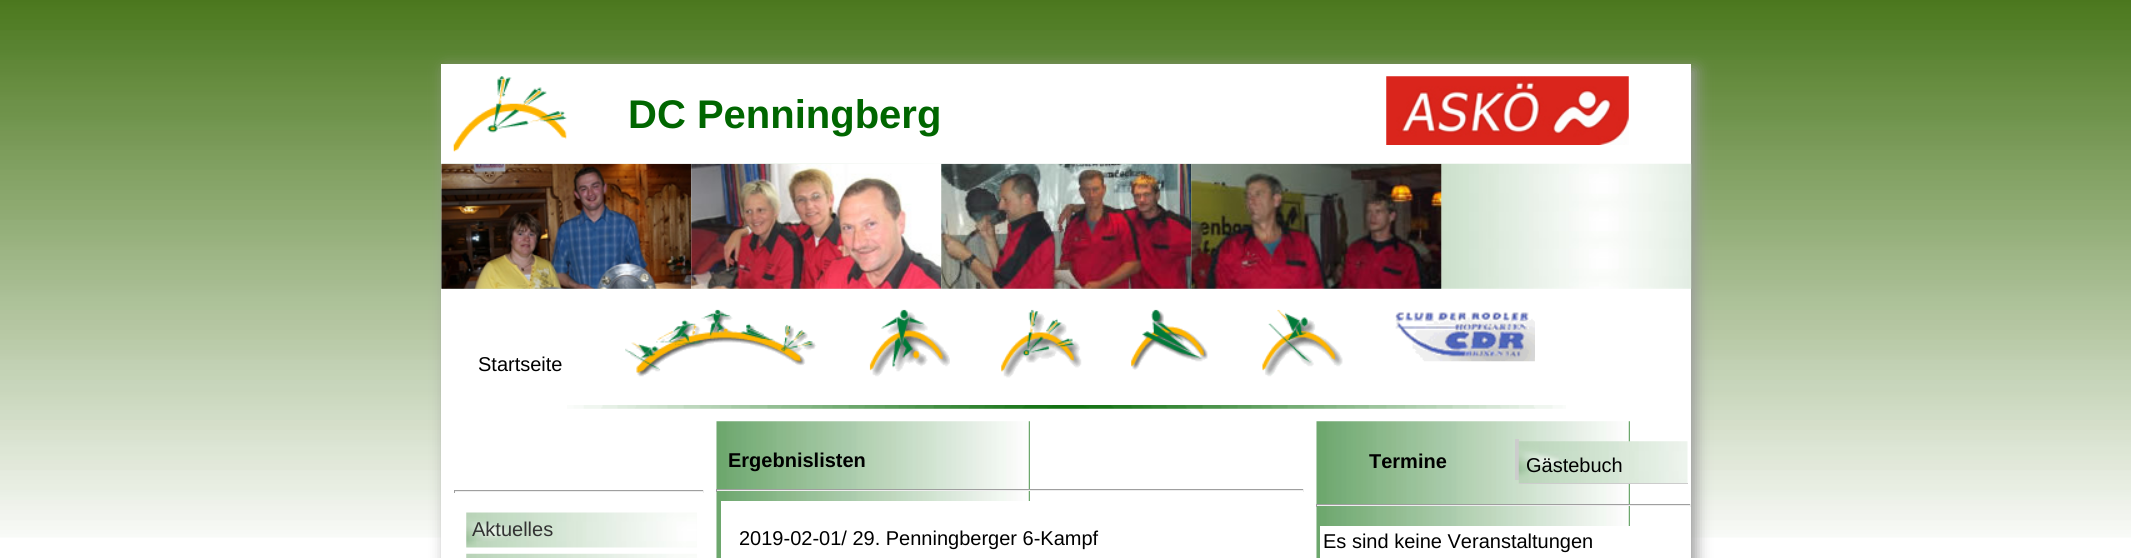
import math
import cairo

surface = cairo.ImageSurface(cairo.Format.RGB24, 2131, 558)
ctx = cairo.Context(surface)
options = cairo.FontOptions()
options.set_hint_metrics(cairo.HintMetrics.OFF)
options.set_hint_style(cairo.HintStyle.NONE)
ctx.set_font_options(options)
ctx.set_miter_limit(4)


def ink(r, g, b):
    ctx.set_source_rgb(r / 255, g / 255, b / 255)


def write(x, y, s, family, size, color, bold=False, italic=False):
    ctx.select_font_face(family, cairo.FontSlant.ITALIC if italic else cairo.FontSlant.NORMAL, cairo.FontWeight.BOLD if bold else cairo.FontWeight.NORMAL)
    ctx.set_font_size(size)
    ink(*color)
    ctx.move_to(x, y)
    ctx.show_text(s)


def block(x, y, w, h, *color):
    ink(*color)
    ctx.rectangle(x, y, w, h)
    ctx.fill()


def round_path(x, y, w, h, r):
    ctx.new_sub_path()
    for i, (u, v) in enumerate([(x + w - r, y + h - r), (x + r, y + h - r), (x + r, y + r), (x + w - r, y + r)]):
        ctx.arc(u, v, r, i * math.pi / 2, (i + 1) * math.pi / 2)
    ctx.close_path()


def blur_box(x, y, w, h, r, blur, alpha):
    ctx.push_group_with_content(cairo.Content.ALPHA)
    ctx.set_operator(cairo.Operator.SOURCE)
    for i in range(15, -16, -2):
        e = blur * i / 6
        if min(w, h) + 2 * e > 0:
            ctx.set_source_rgba(0, 0, 0, alpha * math.erfc((i - 1) / 8.5) / 2)
            round_path(x - e, y - e, w + 2 * e, h + 2 * e, max(0, min(r + e + blur * .6, min(w, h) / 2 + e)))
            ctx.fill()
    ctx.mask(ctx.pop_group())


def paste(path, x, y, w, h):
    ctx.save()
    ctx.set_source_surface(cairo.ImageSurface.create_from_png(path), x, y)
    ctx.rectangle(x, y, w, h)
    ctx.fill()
    ctx.restore()


s1 = dict(family="Liberation Sans", size=40, color=(0, 102, 0), bold=True)
s2 = dict(family="Liberation Sans", size=20, color=(0, 0, 0))
s3 = dict(family="Liberation Sans", size=20, color=(51, 51, 51))
s4 = dict(family="Liberation Sans", size=20, color=(0, 0, 0), bold=True)

ink(255, 255, 255)
ctx.paint()
paste("pic1.png", 0, 0, 2131, 538)
ink(153, 153, 153)
blur_box(446, 69, 1250, 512, 0, 7.5, 1)
block(441, 64, 1250, 494, 255, 255, 255)
paste("pic2.png", 453, 76, 114, 76)
write(628, 128, "DC Penningberg", **s1)
paste("pic3.png", 1386, 76, 243, 69)
paste("pic4.png", 441, 163, 1251, 126)
paste("pic5.png", 441, 163, 251, 126)
paste("pic6.png", 691, 163, 251, 126)
paste("pic7.png", 941, 163, 251, 126)
paste("pic8.png", 1191, 163, 251, 126)
paste("pic9.png", 567, 405, 999, 4)
write(478, 371, "Startseite", **s2)
paste("pic10.png", 625, 309, 192, 68)
paste("pic11.png", 869, 309, 81, 68)
paste("pic12.png", 1001, 309, 81, 69)
paste("pic13.png", 1131, 309, 77, 61)
paste("pic14.png", 1262, 309, 81, 68)
paste("pic15.png", 1395, 312, 140, 50)
block(454, 490, 250, 1, 159, 159, 159)
block(703, 490, 1, 3, 238, 238, 238)
block(454, 491, 250, 1, 238, 238, 238)
block(454, 490, 1, 3, 159, 159, 159)
paste("pic16.png", 466, 512, 231, 36)
write(472, 536, "Aktuelles", **s3)
paste("pic17.png", 466, 553, 231, 5)
paste("pic18.png", 716, 421, 314, 137)
write(728, 467, "Ergebnislisten", **s4)
block(716, 489, 588, 1, 159, 159, 159)
block(1303, 489, 1, 3, 238, 238, 238)
block(716, 490, 588, 1, 238, 238, 238)
block(716, 489, 1, 3, 159, 159, 159)
block(721, 501, 309, 57, 255, 255, 255)
write(739, 545, "2019-02-01/ 29. Penningberger 6-Kampf", **s2)
paste("pic18.png", 1316, 421, 314, 137)
block(1515, 439, 4, 41, 204, 204, 204)
write(1369, 468, "Termine", **s4)
paste("pic19.png", 1518, 441, 170, 43)
block(1519, 483, 169, 1, 204, 204, 204)
write(1526, 472, "Gästebuch", **s2)
block(1316, 504, 375, 1, 159, 159, 159)
block(1690, 504, 1, 3, 238, 238, 238)
block(1316, 505, 375, 1, 238, 238, 238)
block(1316, 504, 1, 3, 159, 159, 159)
block(1320, 526, 310, 32, 255, 255, 255)
write(1323, 548, "Es sind keine Veranstaltungen", **s2)
surface.write_to_png("screenshot.png")
